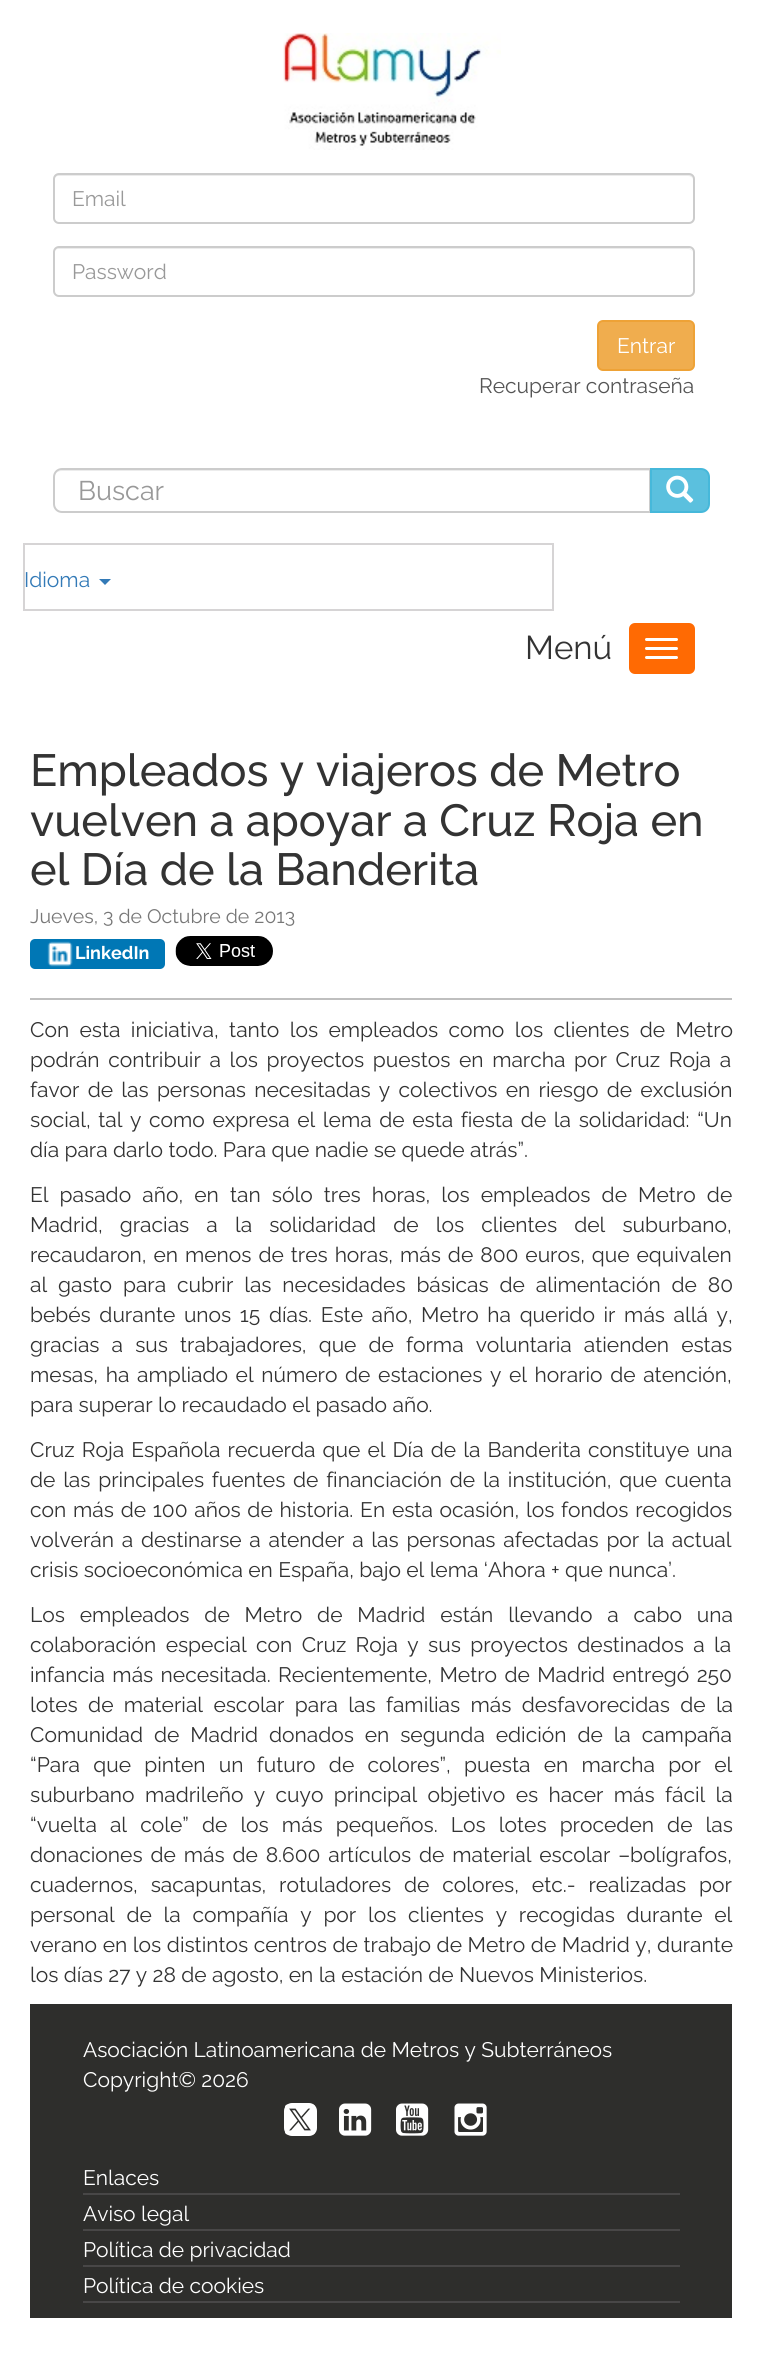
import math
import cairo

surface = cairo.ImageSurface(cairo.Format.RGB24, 761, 2371)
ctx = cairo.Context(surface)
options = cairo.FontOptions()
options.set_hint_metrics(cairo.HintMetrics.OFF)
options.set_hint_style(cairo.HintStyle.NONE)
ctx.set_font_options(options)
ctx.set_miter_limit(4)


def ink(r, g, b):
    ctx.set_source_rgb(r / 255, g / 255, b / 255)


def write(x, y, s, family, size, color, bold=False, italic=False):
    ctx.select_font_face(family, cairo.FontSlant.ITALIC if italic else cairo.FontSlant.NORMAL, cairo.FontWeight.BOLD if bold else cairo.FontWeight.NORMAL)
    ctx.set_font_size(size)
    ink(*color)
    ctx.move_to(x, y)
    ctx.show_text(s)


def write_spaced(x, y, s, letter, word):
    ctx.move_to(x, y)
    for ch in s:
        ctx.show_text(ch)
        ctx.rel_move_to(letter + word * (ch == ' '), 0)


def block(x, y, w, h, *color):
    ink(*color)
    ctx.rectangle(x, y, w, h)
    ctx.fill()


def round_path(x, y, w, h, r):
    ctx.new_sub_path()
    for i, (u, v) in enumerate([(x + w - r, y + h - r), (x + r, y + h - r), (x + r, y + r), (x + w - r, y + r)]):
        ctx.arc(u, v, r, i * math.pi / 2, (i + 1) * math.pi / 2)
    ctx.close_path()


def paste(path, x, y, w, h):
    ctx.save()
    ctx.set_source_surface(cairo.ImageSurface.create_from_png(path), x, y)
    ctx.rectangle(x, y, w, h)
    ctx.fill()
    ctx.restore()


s1 = dict(family="Raleway", size=21, color=(153, 153, 153))
s2 = dict(family="Raleway", size=21, color=(255, 255, 255))
s3 = dict(family="Raleway", size=21, color=(85, 85, 85))
s4 = dict(family="Raleway", size=27, color=(153, 153, 153))
s5 = dict(family="Raleway", size=21, color=(51, 122, 183))
s6 = dict(family="Raleway", size=33, color=(51, 51, 51))
s7 = dict(family="Raleway Medium", size=45, color=(51, 51, 51))
s8 = dict(family="Raleway", size=19.5, color=(119, 119, 119))
s9 = dict(family="Raleway", size=18, color=(255, 255, 255), bold=True)
s10 = dict(family="Raleway", size=21, color=(51, 51, 51))

ink(255, 255, 255)
ctx.paint()
paste("pic1.png", 283, 33, 218, 117)
ink(236, 236, 236)
ctx.new_path()
ctx.move_to(58, 176)
ctx.line_to(688, 176)
ctx.curve_to(691, 176, 693, 178, 693, 180)
ctx.curve_to(693, 177, 691, 174, 688, 174)
ctx.line_to(59, 174)
ctx.curve_to(56, 174, 54, 177, 54, 180)
ctx.curve_to(54, 178, 56, 176, 58, 176)
ctx.close_path()
ctx.fill()
round_path(54, 174, 640, 49, 5)
ink(204, 204, 204)
ctx.stroke()
write(72, 206, "Email", **s1)
ink(236, 236, 236)
ctx.new_path()
ctx.move_to(58, 249)
ctx.line_to(688, 249)
ctx.curve_to(691, 249, 693, 251, 693, 254)
ctx.curve_to(693, 251, 691, 248, 688, 248)
ctx.line_to(59, 248)
ctx.curve_to(56, 248, 54, 251, 54, 254)
ctx.curve_to(54, 251, 56, 249, 58, 249)
ctx.close_path()
ctx.fill()
round_path(54, 247, 640, 49, 5)
ink(204, 204, 204)
ctx.stroke()
write(72, 279, "Password", **s1)
ink(240, 173, 78)
round_path(598, 321, 96, 49, 5)
ctx.fill_preserve()
ink(238, 162, 54)
ctx.stroke()
write(617, 353, "Entrar", **s2)
write(479, 393, "Recuperar contraseña", **s3)
ink(236, 236, 236)
ctx.new_path()
ctx.move_to(62, 471)
ctx.line_to(650, 471)
ctx.line_to(650, 470)
ctx.line_to(62, 470)
ctx.curve_to(58, 470, 54, 474, 54, 478)
ctx.curve_to(54, 474, 57, 471, 62, 471)
ctx.close_path()
ctx.fill()
ctx.new_path()
ctx.move_to(62, 469)
ctx.line_to(650, 469)
ctx.line_to(650, 512)
ctx.line_to(62, 512)
ctx.curve_to(57.5, 512, 54, 508.5, 54, 504)
ctx.line_to(54, 477)
ctx.curve_to(54, 472.5, 57.5, 469, 62, 469)
ctx.close_path()
ink(204, 204, 204)
ctx.stroke()
write(78, 500, "Buscar", **s4)
ink(91, 192, 222)
ctx.new_path()
ctx.move_to(651, 469)
ctx.line_to(701, 469)
ctx.curve_to(705.5, 469, 709, 472.5, 709, 477)
ctx.line_to(709, 504)
ctx.curve_to(709, 508.5, 705.5, 512, 701, 512)
ctx.line_to(651, 512)
ctx.close_path()
ctx.fill_preserve()
ink(70, 184, 218)
ctx.stroke()
paste("pic2.png", 666, 475, 28, 28)
ctx.rectangle(24, 544, 529, 66)
ink(214, 212, 213)
ctx.stroke()
write(24, 587, "Idioma", **s5)
ctx.new_path()
ctx.move_to(99, 579)
ctx.line_to(111, 579)
ctx.line_to(105, 585)
ctx.close_path()
ctx.fill()
write(525, 659, "Menú", **s6)
ink(255, 106, 3)
round_path(629, 623, 66, 51, 6)
ctx.fill()
ink(255, 255, 255)
round_path(645, 638, 33, 3, 1.5)
ctx.fill()
round_path(645, 647, 33, 3, 1.5)
ctx.fill()
round_path(645, 656, 33, 3, 1.5)
ctx.fill()
block(30, 998, 702, 2, 191, 191, 191)
write(30, 786, "Empleados y viajeros de Metro", **s7)
write(30, 836, "vuelven a apoyar a Cruz Roja en", **s7)
write(30, 885, "el Día de la Banderita", **s7)
write(30, 923, "Jueves, 3 de Octubre de 2013", **s8)
ink(0, 119, 181)
round_path(30, 939, 135, 30, 5)
ctx.fill()
paste("pic3.png", 47, 941, 26, 26)
write(75, 959, "LinkedIn", **s9)
paste("pic4.png", 175, 936, 98, 30)
ctx.select_font_face("Raleway")
ctx.set_font_size(21)
ink(51, 51, 51)
write_spaced(30, 1037, "Con esta iniciativa, tanto los empleados como los clientes de Metro", 0, 5)
write_spaced(30, 1067, "podrán contribuir a los proyectos puestos en marcha por Cruz Roja a", 0, 3.25)
write_spaced(30, 1097, "favor de las personas necesitadas y colectivos en riesgo de exclusión", 0, 2.9)
write_spaced(30, 1127, "social, tal y como expresa el lema de esta fiesta de la solidaridad: “Un", 0, 2.25)
write(30, 1157, "día para darlo todo. Para que nadie se quede atrás”.", **s10)
write_spaced(30, 1202, "El pasado año, en tan sólo tres horas, los empleados de Metro de", 0, 5.75)
write_spaced(30, 1232, "Madrid, gracias a la solidaridad de los clientes del suburbano,", 0, 11.75)
write_spaced(30, 1262, "recaudaron, en menos de tres horas, más de 800 euros, que equivalen", 0, 1.6)
write_spaced(30, 1292, "al gasto para cubrir las necesidades básicas de alimentación de 80", 0, 5.5)
write_spaced(30, 1322, "bebés durante unos 15 días. Este año, Metro ha querido ir más allá y,", 0, 3.25)
write_spaced(30, 1352, "gracias a sus trabajadores, que de forma voluntaria atienden estas", 0, 6.75)
write_spaced(30, 1382, "mesas, ha ampliado el número de estaciones y el horario de atención,", 0, 2.25)
write(30, 1412, "para superar lo recaudado el pasado año.", **s10)
write_spaced(30, 1457, "Cruz Roja Española recuerda que el Día de la Banderita constituye una", 0, 1.75)
write_spaced(30, 1487, "de las principales fuentes de financiación de la institución, que cuenta", 0, 2.4)
write_spaced(30, 1517, "con más de 100 años de historia. En esta ocasión, los fondos recogidos", 0, 1.4)
write_spaced(30, 1547, "volverán a destinarse a atender a las personas afectadas por la actual", 0, 2.4)
write(30, 1577, "crisis socioeconómica en España, bajo el lema ‘Ahora + que nunca’.", **s10)
write_spaced(30, 1622, "Los empleados de Metro de Madrid están llevando a cabo una", 0, 9.5)
write_spaced(30, 1652, "colaboración especial con Cruz Roja y sus proyectos destinados a la", 0, 4)
write_spaced(30, 1682, "infancia más necesitada. Recientemente, Metro de Madrid entregó 250", 0, 2)
write_spaced(30, 1712, "lotes de material escolar para las familias más desfavorecidas de la", 0, 5)
write_spaced(30, 1742, "Comunidad de Madrid donados en segunda edición de la campaña", 0, 5.5)
write_spaced(30, 1772, "“Para que pinten un futuro de colores”, puesta en marcha por el", 0, 7.9)
write_spaced(30, 1802, "suburbano madrileño y cuyo principal objetivo es hacer más fácil la", 0, 5)
write_spaced(30, 1832, "“vuelta al cole” de los más pequeños. Los lotes proceden de las", 0, 7.75)
write_spaced(30, 1862, "donaciones de más de 8.600 artículos de material escolar –bolígrafos,", 0, 2.5)
write_spaced(30, 1892, "cuadernos, sacapuntas, rotuladores de colores, etc.- realizadas por", 0, 7.5)
write_spaced(30, 1922, "personal de la compañía y por los clientes y recogidas durante el", 0, 6.4)
write_spaced(30, 1952, "verano en los distintos centros de trabajo de Metro de Madrid y, durante", 0, 0.25)
write(30, 1982, "los días 27 y 28 de agosto, en la estación de Nuevos Ministerios.", **s10)
block(30, 2004, 702, 314, 46, 46, 44)
write(83, 2057, "Asociación Latinoamericana de Metros y Subterráneos", **s2)
write(83, 2087, "Copyright© 2026", **s2)
paste("pic5.png", 284, 2103, 33, 33)
paste("pic6.png", 339, 2103, 33, 33)
paste("pic7.png", 396, 2103, 33, 33)
paste("pic8.png", 454, 2103, 33, 33)
block(83, 2193, 597, 2, 72, 71, 71)
write(83, 2185, "Enlaces", **s2)
block(83, 2229, 597, 2, 72, 71, 71)
write(83, 2221, "Aviso legal", **s2)
block(83, 2265, 597, 2, 72, 71, 71)
write(83, 2257, "Política de privacidad", **s2)
block(83, 2301, 597, 2, 72, 71, 71)
write(83, 2293, "Política de cookies", **s2)
surface.write_to_png("screenshot.png")
